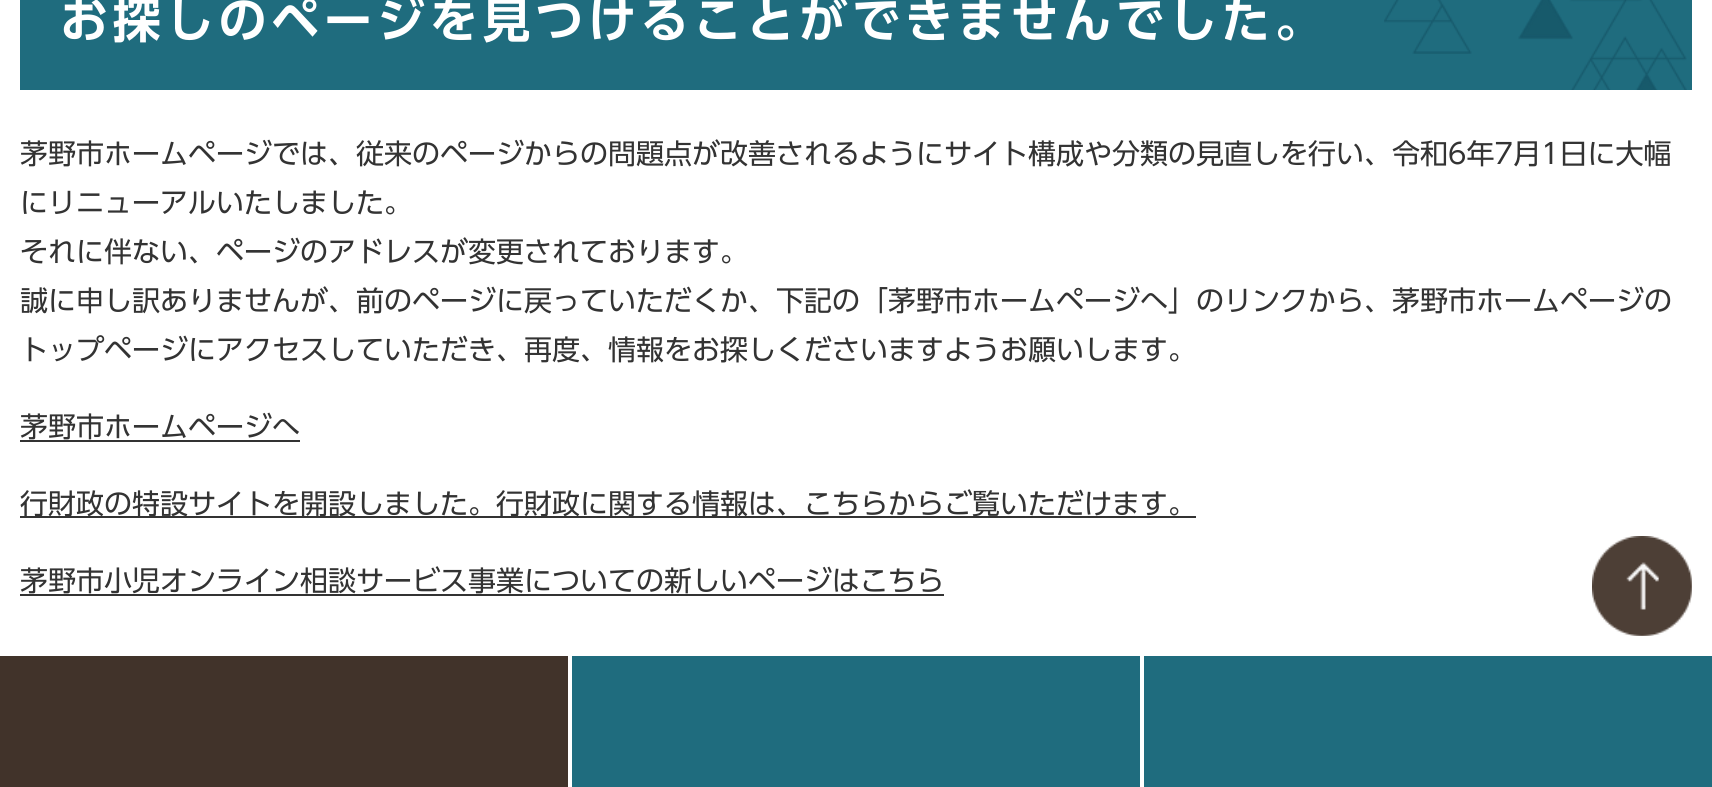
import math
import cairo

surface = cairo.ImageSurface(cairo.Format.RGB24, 1712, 787)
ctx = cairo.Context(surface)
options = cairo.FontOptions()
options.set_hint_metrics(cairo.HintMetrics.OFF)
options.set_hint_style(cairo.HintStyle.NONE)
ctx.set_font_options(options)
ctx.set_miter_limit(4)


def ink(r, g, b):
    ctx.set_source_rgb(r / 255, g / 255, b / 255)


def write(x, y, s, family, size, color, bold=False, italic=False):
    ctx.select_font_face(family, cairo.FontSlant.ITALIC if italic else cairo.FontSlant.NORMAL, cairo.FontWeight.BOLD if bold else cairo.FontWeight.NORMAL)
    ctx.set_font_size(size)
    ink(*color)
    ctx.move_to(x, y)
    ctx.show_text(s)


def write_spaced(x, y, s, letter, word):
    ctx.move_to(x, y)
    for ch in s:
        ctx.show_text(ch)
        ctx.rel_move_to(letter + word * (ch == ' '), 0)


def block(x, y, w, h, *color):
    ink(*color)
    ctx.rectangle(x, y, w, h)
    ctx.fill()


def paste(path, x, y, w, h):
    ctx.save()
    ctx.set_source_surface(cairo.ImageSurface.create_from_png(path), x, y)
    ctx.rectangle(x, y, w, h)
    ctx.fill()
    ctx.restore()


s1 = dict(family="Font", size=28, color=(51, 51, 51))

ink(255, 255, 255)
ctx.paint()
block(20, 0, 1672, 90, 31, 108, 126)
paste("pic1.png", 1384, 0, 303, 90)
ctx.select_font_face("Font SemiBold")
ctx.set_font_size(48)
ink(255, 255, 255)
write_spaced(60, 38, "お探しのページを見つけることができませんでした。", 4.8, 0)
write(20, 164, "茅野市ホームページでは、従来のページからの問題点が改善されるようにサイト構成や分類の見直しを行い、令和6年7月1日に大幅", **s1)
write(20, 213, "にリニューアルいたしました。", **s1)
write(20, 262, "それに伴ない、ページのアドレスが変更されております。", **s1)
write(20, 311, "誠に申し訳ありませんが、前のページに戻っていただくか、下記の「茅野市ホームページへ」のリンクから、茅野市ホームページの", **s1)
write(20, 360, "トップページにアクセスしていただき、再度、情報をお探しくださいますようお願いします。", **s1)
write(20, 437, "茅野市ホームページへ", **s1)
block(20, 440, 280, 2, 51, 51, 51)
block(20, 516, 1176, 2, 51, 51, 51)
write(20, 514, "行財政の特設サイトを開設しました。行財政に関する情報は、こちらからご覧いただけます。", **s1)
write(20, 591, "茅野市小児オンライン相談サービス事業についての新しいページはこちら", **s1)
block(20, 594, 924, 2, 51, 51, 51)
paste("pic2.png", 1592, 536, 100, 100)
block(0, 656, 568, 131, 65, 51, 42)
block(572, 656, 568, 131, 31, 108, 126)
block(1144, 656, 568, 131, 31, 108, 126)
surface.write_to_png("screenshot.png")
